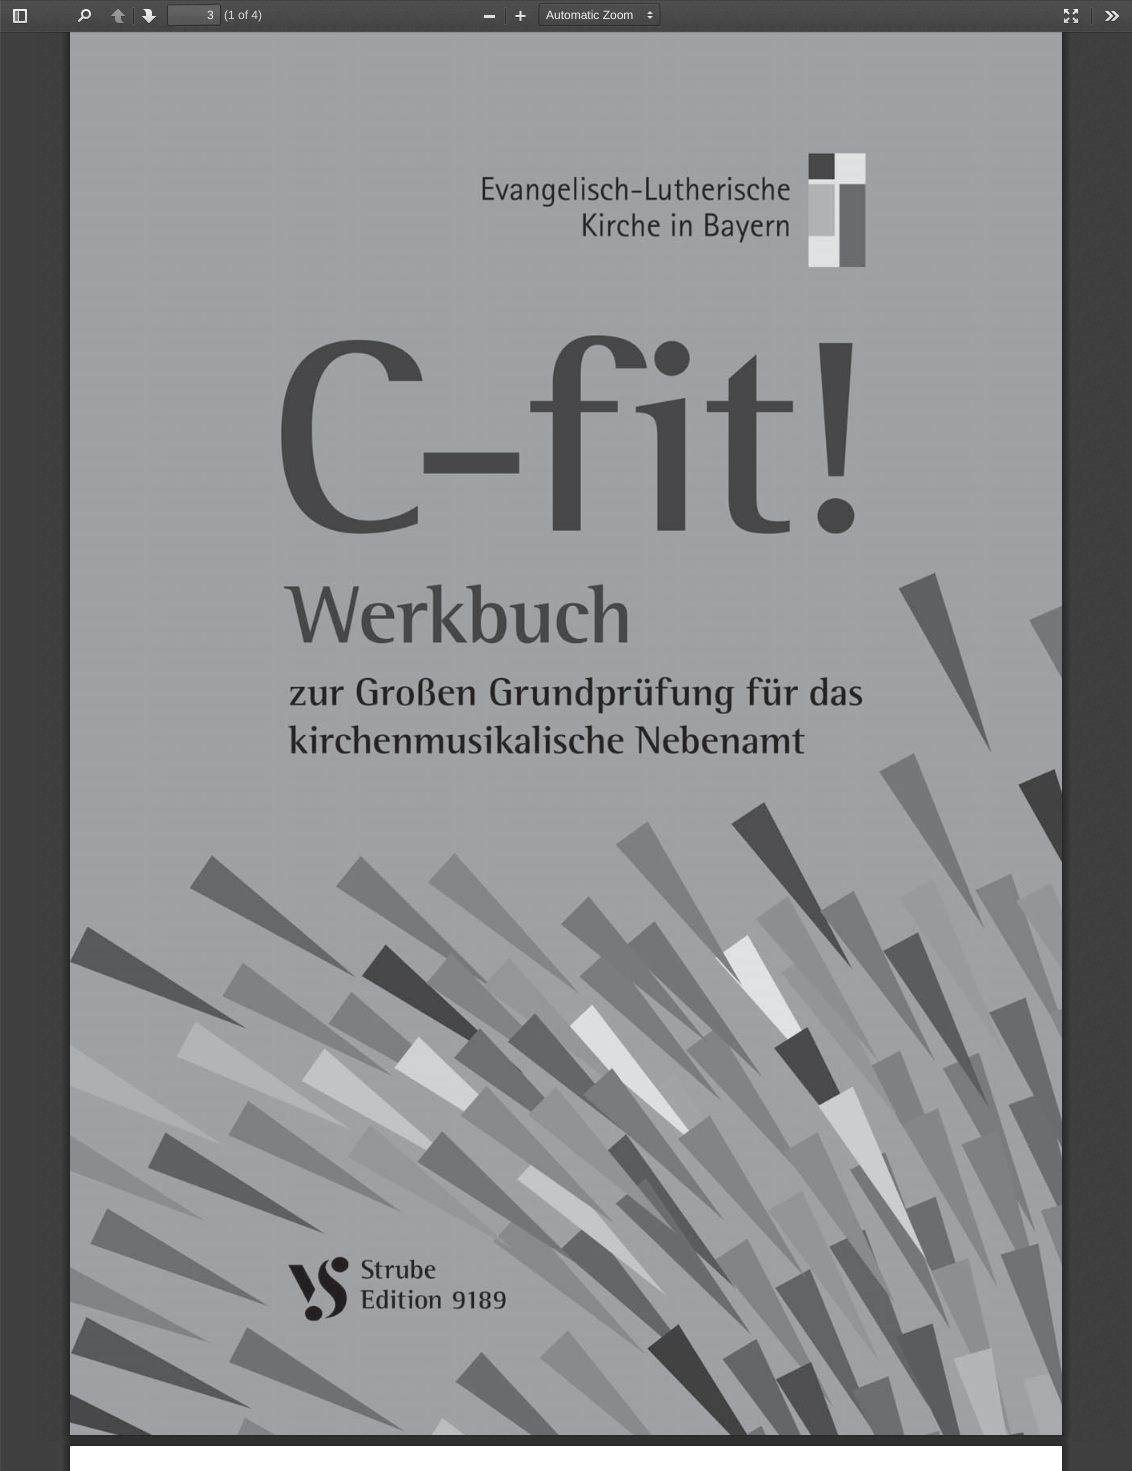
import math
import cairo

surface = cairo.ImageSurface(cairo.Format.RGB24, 1132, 1471)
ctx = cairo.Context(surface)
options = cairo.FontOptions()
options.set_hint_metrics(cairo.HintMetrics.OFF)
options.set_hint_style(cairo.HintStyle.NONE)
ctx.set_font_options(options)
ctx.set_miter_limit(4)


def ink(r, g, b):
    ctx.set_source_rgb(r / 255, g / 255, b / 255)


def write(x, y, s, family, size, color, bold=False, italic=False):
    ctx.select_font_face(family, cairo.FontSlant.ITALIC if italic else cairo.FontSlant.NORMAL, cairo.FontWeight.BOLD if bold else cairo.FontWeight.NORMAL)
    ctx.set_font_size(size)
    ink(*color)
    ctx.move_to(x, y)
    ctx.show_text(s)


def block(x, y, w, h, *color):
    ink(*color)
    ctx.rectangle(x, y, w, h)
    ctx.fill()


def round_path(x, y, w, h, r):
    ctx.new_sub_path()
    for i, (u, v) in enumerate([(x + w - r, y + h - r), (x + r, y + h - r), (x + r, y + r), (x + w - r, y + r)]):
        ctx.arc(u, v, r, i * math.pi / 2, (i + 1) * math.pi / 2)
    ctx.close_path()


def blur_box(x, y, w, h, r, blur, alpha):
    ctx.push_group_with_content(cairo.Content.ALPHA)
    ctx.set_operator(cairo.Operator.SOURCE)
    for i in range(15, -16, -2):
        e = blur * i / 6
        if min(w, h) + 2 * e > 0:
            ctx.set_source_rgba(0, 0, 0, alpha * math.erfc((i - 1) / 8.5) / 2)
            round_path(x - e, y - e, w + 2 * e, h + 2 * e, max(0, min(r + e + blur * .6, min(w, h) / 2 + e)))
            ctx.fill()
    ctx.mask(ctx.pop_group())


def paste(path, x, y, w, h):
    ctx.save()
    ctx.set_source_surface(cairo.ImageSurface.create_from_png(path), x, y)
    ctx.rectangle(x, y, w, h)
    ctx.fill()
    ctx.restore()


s1 = dict(family="Liberation Sans", size=12, color=(242, 242, 242))
s2 = dict(family="Liberation Sans", size=12, color=(217, 217, 217))

ink(64, 64, 64)
ctx.paint()
paste("pic1.png", 38, 17, 1089, 1424)
block(0, 32, 1, 1439, 74, 74, 74)
paste("pic11.png", 62, 32, 1008, 1411)
paste("pic12.png", 70, 32, 992, 1403)
ctx.save()
ctx.rectangle(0, 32, 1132, 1)
ctx.clip()
ink(0, 0, 0)
blur_box(0, 1, 1132, 32, 0, 0.5, 0.1)
ctx.restore()
ctx.set_source_rgba(0, 0, 0, 0.15)
ctx.rectangle(0, 32, 1132, 1)
ctx.fill()
paste("pic2.png", 0, 0, 1132, 32)
ctx.set_source_rgba(1, 1, 1, 0.05)
ctx.rectangle(0, 31, 1132, 1)
ctx.fill()
ctx.set_source_rgba(0, 0, 0, 0.15)
ctx.rectangle(0, 0, 1132, 1)
ctx.fill()
ctx.set_source_rgba(1, 1, 1, 0.08)
ctx.rectangle(0, 0, 1, 32)
ctx.fill()
paste("pic3.png", 13, 9, 14, 15)
paste("pic4.png", 78, 9, 13, 14)
paste("pic5.png", 111, 9, 14, 15)
ctx.rectangle(132.5, 7.5, 2, 17)
ctx.set_line_width(1)
ctx.stroke()
ctx.set_source_rgba(0, 0, 0, 0.5)
ctx.rectangle(133, 8, 1, 16)
ctx.fill()
paste("pic6.png", 142, 9, 14, 15)
ctx.set_source_rgba(1, 1, 1, 0.05)
ctx.new_path()
ctx.move_to(167, 24)
ctx.curve_to(167, 29, 173, 27, 177, 27)
ctx.line_to(211, 27)
ctx.curve_to(215, 27, 221, 29, 221, 24)
ctx.line_to(220, 26)
ctx.line_to(168, 26)
ctx.close_path()
ctx.fill()
ctx.set_source_rgba(1, 1, 1, 0.09)
ctx.rectangle(168, 5, 52, 20)
ctx.fill()
gradient = cairo.LinearGradient(194, 5, 194, 25)
gradient.add_color_stop_rgba(0, 1, 1, 1, 0.05)
gradient.add_color_stop_rgba(1, 1, 1, 1, 0)
ctx.set_source(gradient)
ctx.rectangle(168, 5, 52, 11)
ctx.fill()
ctx.set_source_rgba(0, 0, 0, 0.05)
ctx.new_path()
ctx.move_to(169, 6)
ctx.line_to(219, 6)
ctx.curve_to(220, 6, 220, 6, 220, 7)
ctx.curve_to(220, 3, 215, 5, 211, 5)
ctx.line_to(177, 5)
ctx.curve_to(173, 5, 168, 3, 168, 7)
ctx.curve_to(168, 6, 168, 6, 169, 6)
ctx.close_path()
ctx.fill()
ctx.new_path()
ctx.move_to(168, 5)
ctx.line_to(210.5, 4.5)
ctx.curve_to(214, 4.5, 218, 2.5, 220, 5)
ctx.set_source_rgba(0, 0, 0, 0.32)
ctx.stroke()
ctx.new_path()
ctx.move_to(220, 5)
ctx.curve_to(221, 5.5, 221, 24.5, 220, 25)
ctx.set_source_rgba(0, 0, 0, 0.38)
ctx.stroke()
ctx.new_path()
ctx.move_to(220, 25)
ctx.line_to(177.5, 25.5)
ctx.curve_to(174, 25.5, 170, 27.5, 168, 25)
ctx.set_source_rgba(0, 0, 0, 0.42)
ctx.stroke()
ctx.new_path()
ctx.move_to(168, 25)
ctx.curve_to(167, 24.5, 167, 5.5, 168, 5)
ctx.set_source_rgba(0, 0, 0, 0.38)
ctx.stroke()
write(207, 19, "3", **s1)
write(224, 19, "(1 of 4)", **s2)
ctx.set_source_rgba(1, 1, 1, 0.82)
ctx.rectangle(484, 15, 11, 3)
ctx.fill()
ctx.rectangle(504.5, 7.5, 2, 17)
ctx.set_source_rgba(1, 1, 1, 0.08)
ctx.stroke()
ctx.set_source_rgba(0, 0, 0, 0.5)
ctx.rectangle(505, 8, 1, 16)
ctx.fill()
paste("pic7.png", 515, 11, 11, 11)
ctx.set_source_rgba(1, 1, 1, 0.05)
ctx.new_path()
ctx.move_to(539, 25)
ctx.curve_to(539, 26, 540, 27, 541, 27)
ctx.line_to(659, 27)
ctx.curve_to(660, 27, 661, 26, 661, 25)
ctx.line_to(661, 6)
ctx.line_to(660, 5)
ctx.line_to(660, 18)
ctx.curve_to(660, 19, 662, 26, 658, 26)
ctx.line_to(540, 26)
ctx.close_path()
ctx.fill()
paste("pic8.png", 647, 11, 6, 8)
ctx.new_path()
ctx.move_to(540, 5)
ctx.line_to(658, 5)
ctx.curve_to(659, 5, 660, 5, 660, 6)
ctx.curve_to(660, -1, 642, 4, 639, 4)
ctx.line_to(541, 4)
ctx.close_path()
ctx.fill()
ctx.new_path()
ctx.move_to(539.5, 4)
ctx.line_to(540.5, 3.5)
ctx.line_to(658.5, 3.5)
ctx.line_to(659.5, 4)
ctx.set_source_rgba(0, 0, 0, 0.32)
ctx.stroke()
ctx.new_path()
ctx.move_to(659.5, 4)
ctx.curve_to(660.5, 5, 660.5, 24, 659.5, 25)
ctx.set_source_rgba(0, 0, 0, 0.38)
ctx.stroke()
ctx.new_path()
ctx.move_to(659.5, 25)
ctx.line_to(658.5, 25.5)
ctx.line_to(540.5, 25.5)
ctx.line_to(539.5, 25)
ctx.set_source_rgba(0, 0, 0, 0.42)
ctx.stroke()
ctx.new_path()
ctx.move_to(539.5, 25)
ctx.curve_to(538.5, 24, 538.5, 5, 539.5, 4)
ctx.set_source_rgba(0, 0, 0, 0.38)
ctx.stroke()
write(546, 19, "Automatic Zoom", **s1)
paste("pic9.png", 1064, 9, 14, 15)
ctx.rectangle(1090.5, 7.5, 2, 17)
ctx.set_source_rgba(1, 1, 1, 0.08)
ctx.stroke()
ctx.set_source_rgba(0, 0, 0, 0.5)
ctx.rectangle(1091, 8, 1, 16)
ctx.fill()
paste("pic10.png", 1105, 11, 15, 11)
block(70, 1446, 992, 25, 255, 255, 255)
paste("pic13.png", 62, 1439, 1008, 32)
surface.write_to_png("screenshot.png")
